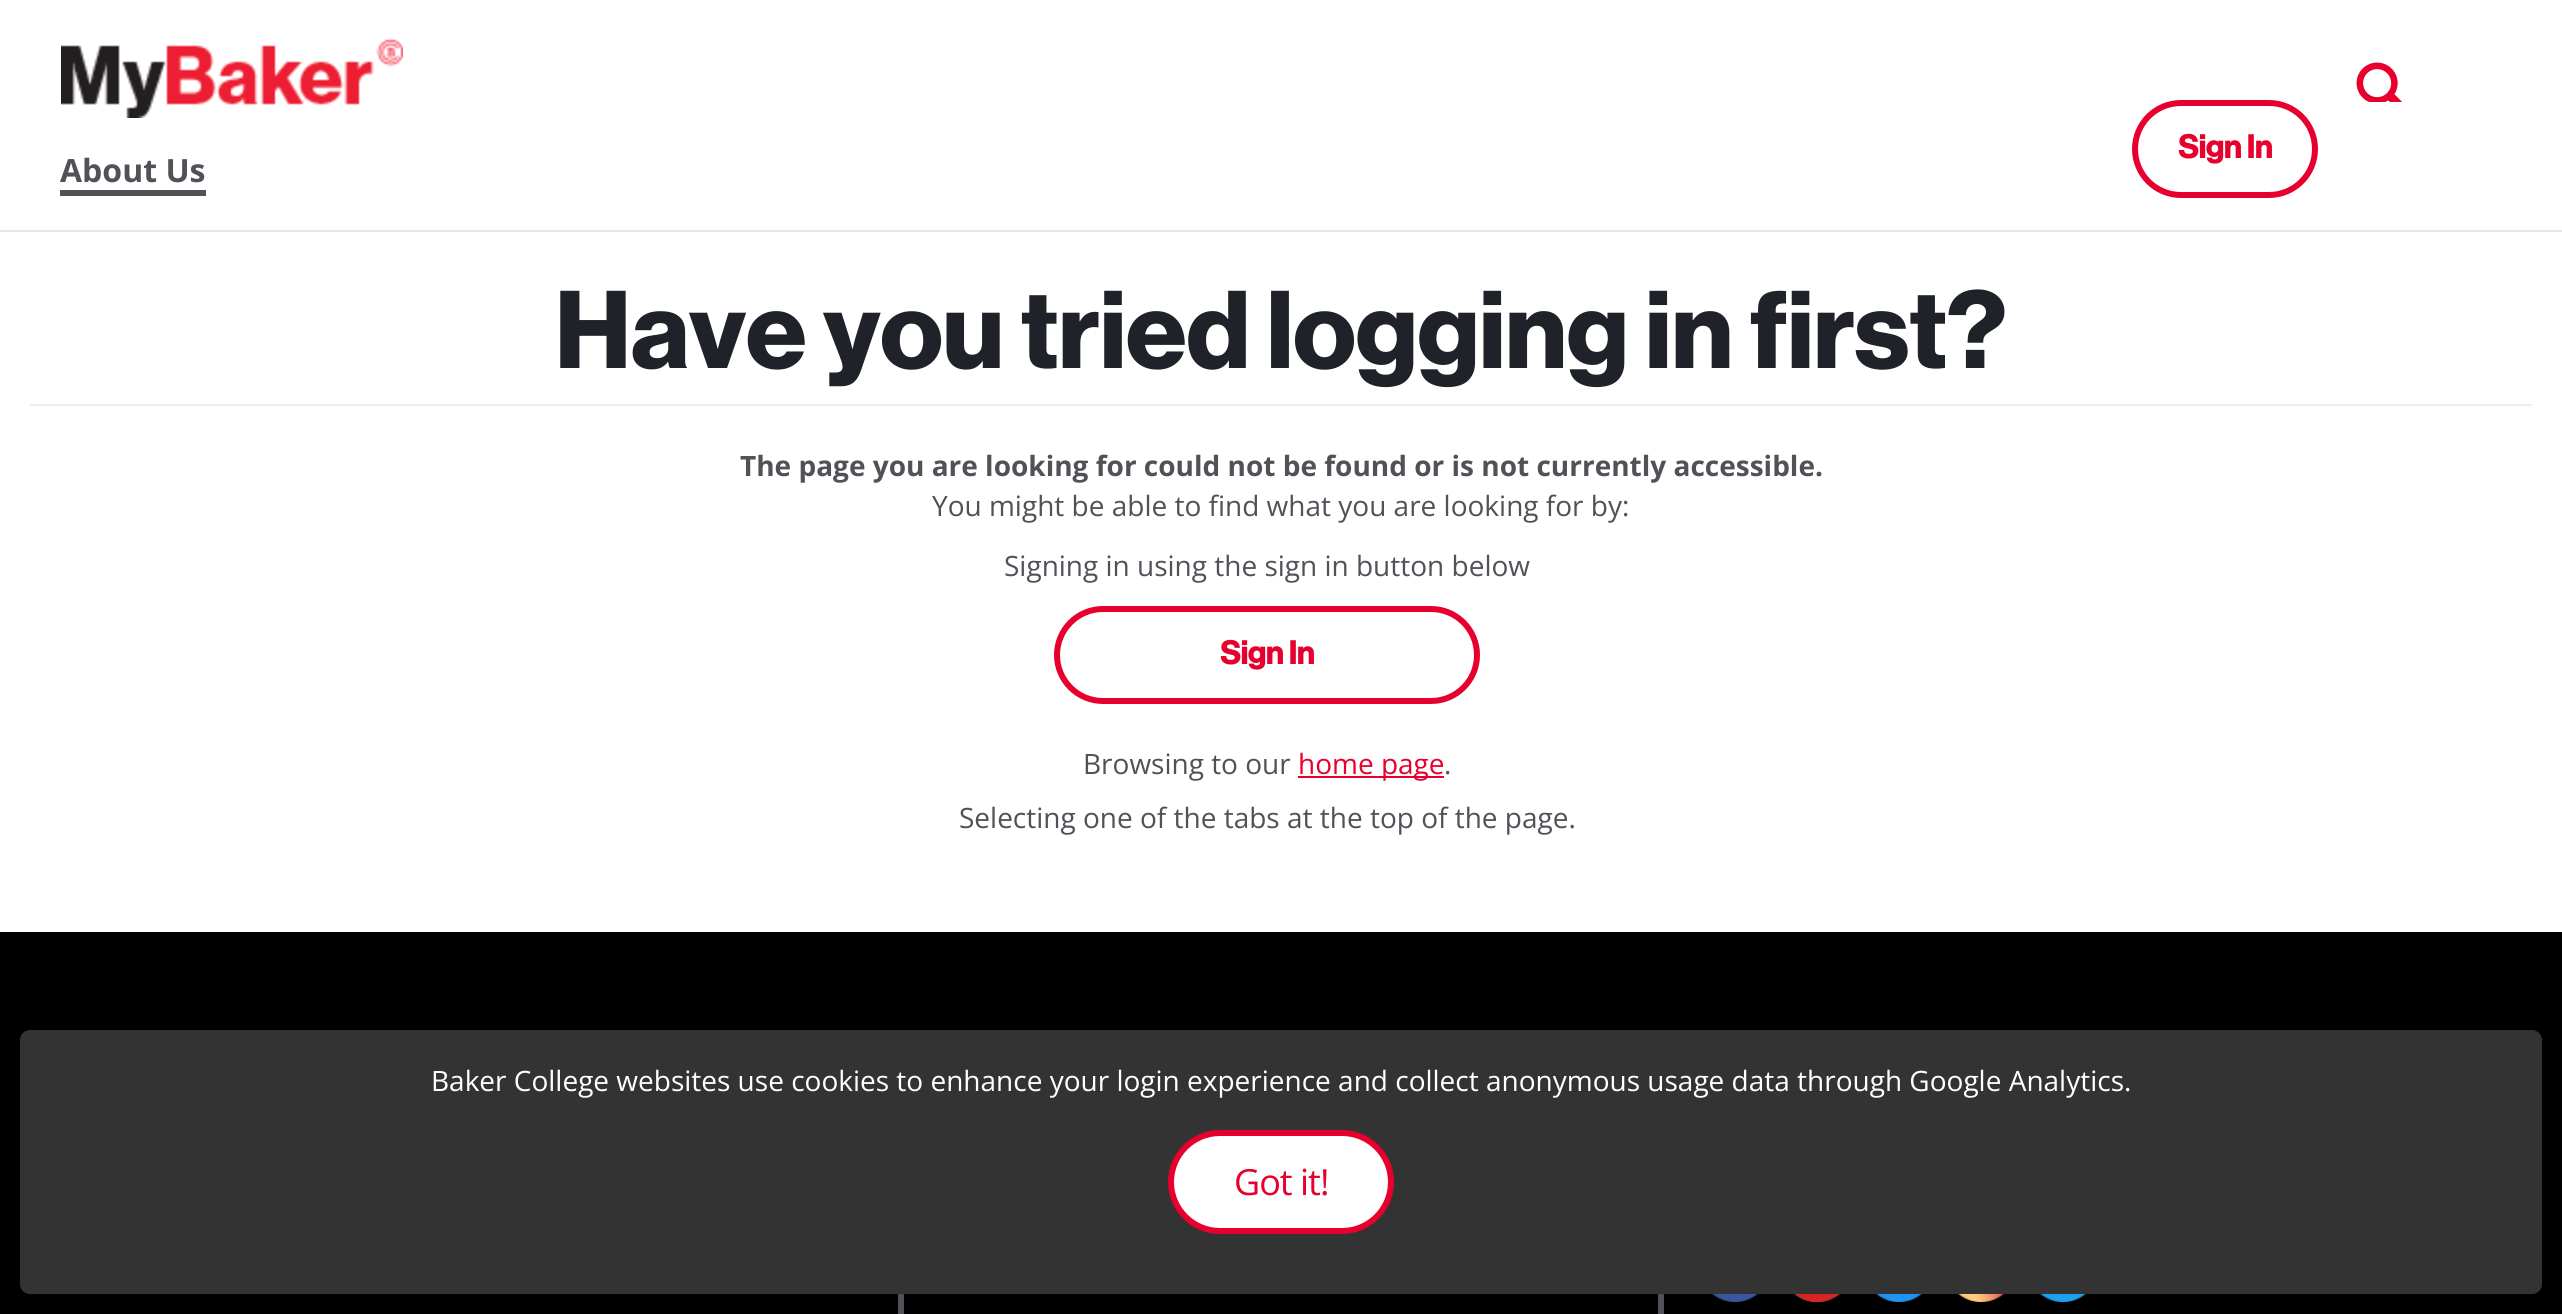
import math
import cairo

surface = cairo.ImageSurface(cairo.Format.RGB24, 2562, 1314)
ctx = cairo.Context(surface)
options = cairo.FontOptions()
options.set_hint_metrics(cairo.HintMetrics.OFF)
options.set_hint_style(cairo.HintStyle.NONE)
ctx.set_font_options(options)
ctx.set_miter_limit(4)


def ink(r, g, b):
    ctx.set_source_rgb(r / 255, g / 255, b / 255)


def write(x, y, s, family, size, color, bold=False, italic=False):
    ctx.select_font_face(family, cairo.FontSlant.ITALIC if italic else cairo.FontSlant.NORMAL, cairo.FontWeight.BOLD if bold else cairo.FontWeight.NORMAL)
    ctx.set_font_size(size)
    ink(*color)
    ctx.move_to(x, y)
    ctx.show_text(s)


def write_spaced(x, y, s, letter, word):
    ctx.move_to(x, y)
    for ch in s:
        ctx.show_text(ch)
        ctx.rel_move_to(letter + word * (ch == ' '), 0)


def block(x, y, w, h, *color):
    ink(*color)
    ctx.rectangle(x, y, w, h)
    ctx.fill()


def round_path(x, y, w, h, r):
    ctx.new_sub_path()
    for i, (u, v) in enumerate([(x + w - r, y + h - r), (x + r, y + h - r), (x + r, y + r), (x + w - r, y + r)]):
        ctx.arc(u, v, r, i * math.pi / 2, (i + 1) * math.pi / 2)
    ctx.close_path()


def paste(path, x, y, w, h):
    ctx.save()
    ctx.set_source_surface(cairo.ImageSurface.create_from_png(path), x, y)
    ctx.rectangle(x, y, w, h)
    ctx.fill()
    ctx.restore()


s1 = dict(family="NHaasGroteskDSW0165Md", size=32, color=(231, 0, 46), bold=True)
s2 = dict(family="Open Sans", size=32, color=(80, 82, 88), bold=True)
s3 = dict(family="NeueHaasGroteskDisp", size=108, color=(31, 34, 40), bold=True)
s4 = dict(family="Open Sans", size=28, color=(80, 82, 88), bold=True)
s5 = dict(family="Open Sans", size=28, color=(80, 82, 88))
s6 = dict(family="Open Sans", size=28, color=(231, 0, 46))
s7 = dict(family="Open Sans", size=28, color=(255, 255, 255))

ink(255, 255, 255)
ctx.paint()
paste("pic1.png", 61, 38, 342, 80)
paste("pic2.png", 2356, 62, 46, 40)
round_path(2135, 103, 180, 92, 46)
ink(231, 0, 46)
ctx.set_line_width(6)
ctx.stroke()
write(2178, 158, "Sign In", **s1)
block(0, 230, 2562, 2, 231, 231, 231)
write(60, 182, "About Us", **s2)
block(60, 190, 146, 6, 80, 82, 88)
write(555, 368, "Have you tried logging in first?", **s3)
block(30, 404, 2502, 2, 238, 238, 238)
write(740, 476, "The page you are looking for could not be found or is not currently accessible.", **s4)
write(932, 516, "You might be able to find what you are looking for by:", **s5)
write(1004, 576, "Signing in using the sign in button below", **s5)
round_path(1057, 609, 420, 92, 46)
ink(231, 0, 46)
ctx.stroke()
write(1220, 664, "Sign In", **s1)
write(1083, 774, "Browsing to our", **s5)
block(1298, 776, 146, 2, 231, 0, 46)
write(1298, 774, "home page", **s6)
write(1444, 774, ".", **s5)
write(959, 828, "Selecting one of the tabs at the top of the page.", **s5)
block(0, 932, 2562, 382, 0, 0, 0)
block(1658, 1294, 6, 20, 80, 82, 88)
block(898, 1294, 6, 20, 80, 82, 88)
paste("pic3.png", 1712, 1294, 47, 8)
paste("pic4.png", 1793, 1294, 48, 8)
paste("pic5.png", 1876, 1294, 47, 8)
paste("pic6.png", 1958, 1294, 47, 8)
paste("pic7.png", 2040, 1294, 47, 8)
ink(51, 51, 51)
round_path(20, 1030, 2522, 264, 10)
ctx.fill()
write(431, 1091, "Baker College websites use cookies to enhance your login experience and collect anonymous usage data through Google Analytics.", **s7)
round_path(1171, 1133, 220, 98, 49)
ctx.fill_preserve()
ink(231, 0, 46)
ctx.stroke()
ctx.set_font_size(36)
write_spaced(1234, 1195, "Got it!", -1, 0)
surface.write_to_png("screenshot.png")
